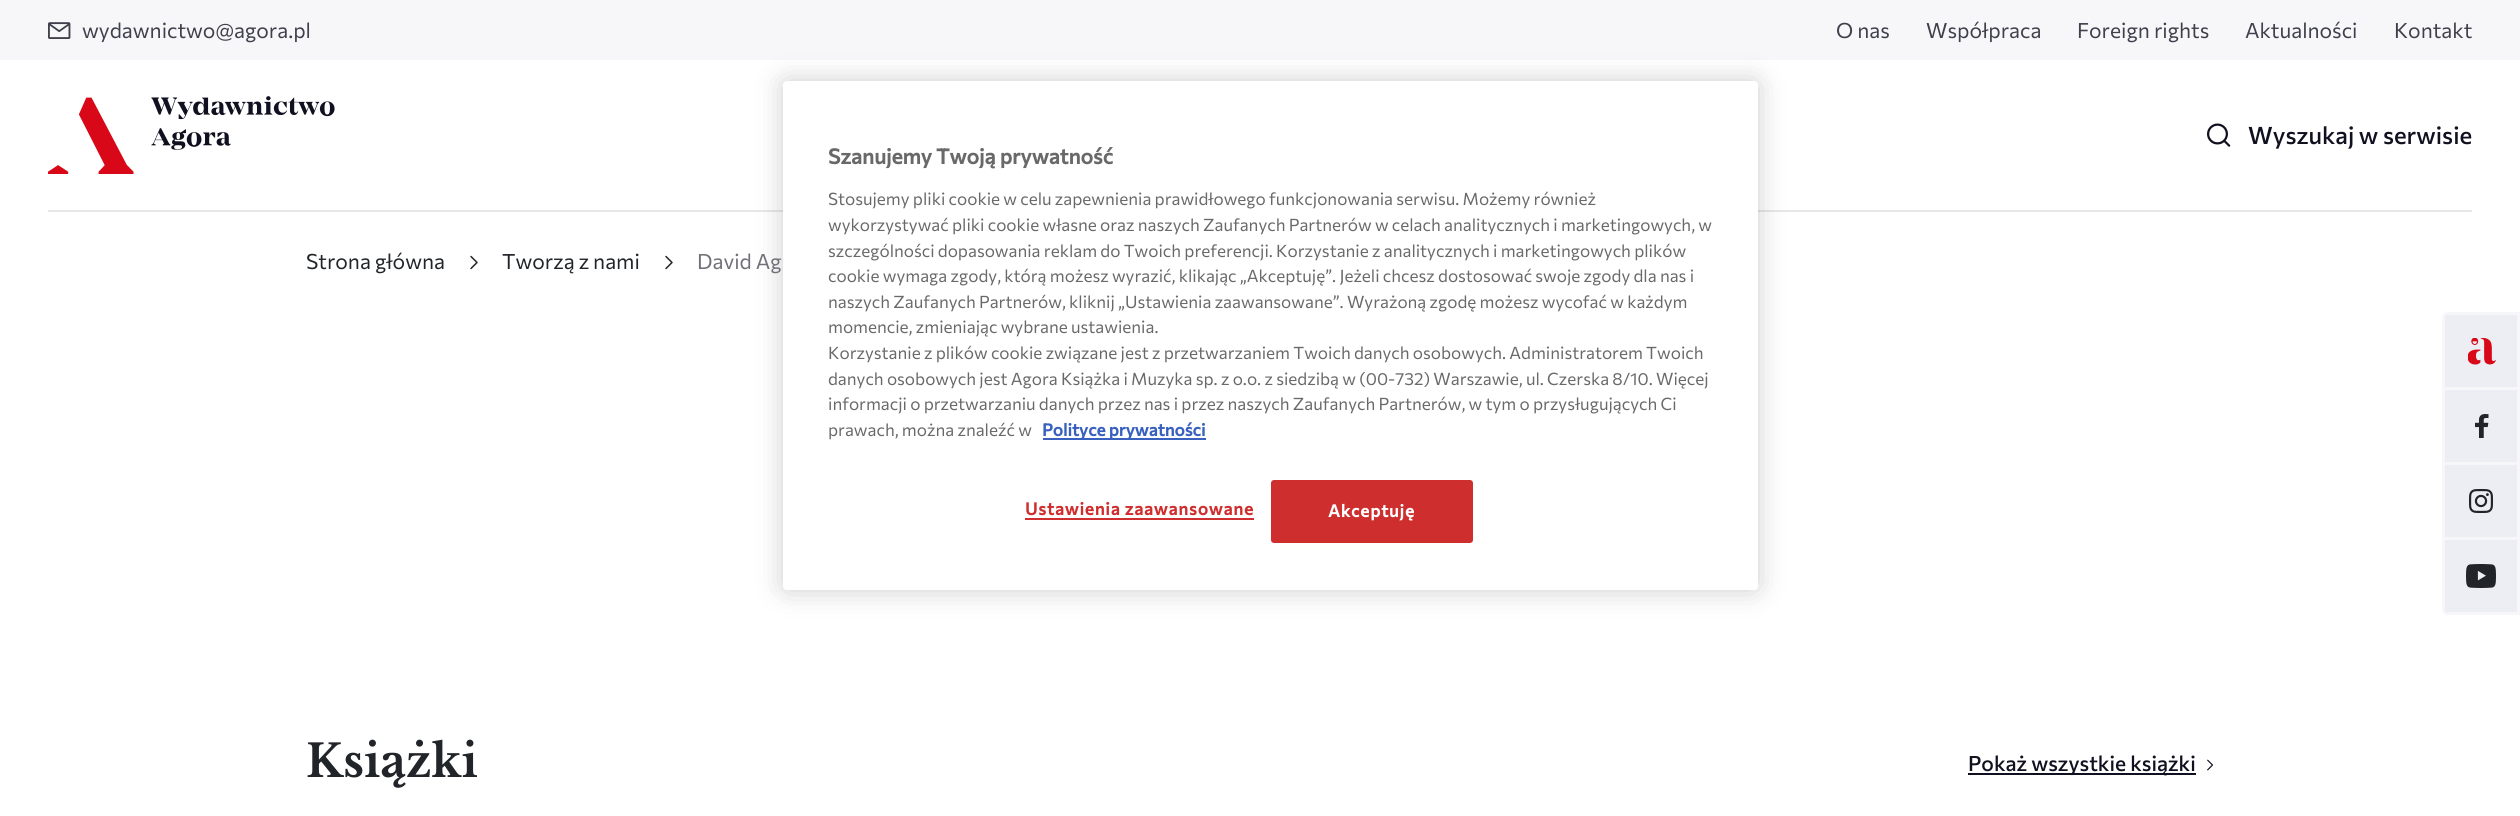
import math
import cairo

surface = cairo.ImageSurface(cairo.Format.RGB24, 2520, 816)
ctx = cairo.Context(surface)
options = cairo.FontOptions()
options.set_hint_metrics(cairo.HintMetrics.OFF)
options.set_hint_style(cairo.HintStyle.NONE)
ctx.set_font_options(options)
ctx.set_miter_limit(4)


def ink(r, g, b):
    ctx.set_source_rgb(r / 255, g / 255, b / 255)


def write(x, y, s, family, size, color, bold=False, italic=False):
    ctx.select_font_face(family, cairo.FontSlant.ITALIC if italic else cairo.FontSlant.NORMAL, cairo.FontWeight.BOLD if bold else cairo.FontWeight.NORMAL)
    ctx.set_font_size(size)
    ink(*color)
    ctx.move_to(x, y)
    ctx.show_text(s)


def write_spaced(x, y, s, letter, word):
    ctx.move_to(x, y)
    for ch in s:
        ctx.show_text(ch)
        ctx.rel_move_to(letter + word * (ch == ' '), 0)


def block(x, y, w, h, *color):
    ink(*color)
    ctx.rectangle(x, y, w, h)
    ctx.fill()


def round_path(x, y, w, h, r):
    ctx.new_sub_path()
    for i, (u, v) in enumerate([(x + w - r, y + h - r), (x + r, y + h - r), (x + r, y + r), (x + w - r, y + r)]):
        ctx.arc(u, v, r, i * math.pi / 2, (i + 1) * math.pi / 2)
    ctx.close_path()


def blur_box(x, y, w, h, r, blur, alpha):
    ctx.push_group_with_content(cairo.Content.ALPHA)
    ctx.set_operator(cairo.Operator.SOURCE)
    for i in range(15, -16, -2):
        e = blur * i / 6
        if min(w, h) + 2 * e > 0:
            ctx.set_source_rgba(0, 0, 0, alpha * math.erfc((i - 1) / 8.5) / 2)
            round_path(x - e, y - e, w + 2 * e, h + 2 * e, max(0, min(r + e + blur * .6, min(w, h) / 2 + e)))
            ctx.fill()
    ctx.mask(ctx.pop_group())


def paste(path, x, y, w, h):
    ctx.save()
    ctx.set_source_surface(cairo.ImageSurface.create_from_png(path), x, y)
    ctx.rectangle(x, y, w, h)
    ctx.fill()
    ctx.restore()


s1 = dict(family="Commissioner", size=21, color=(64, 64, 77))
s2 = dict(family="Commissioner Medium", size=24, color=(16, 16, 32))
s3 = dict(family="Commissioner", size=21, color=(105, 105, 105), bold=True)
s4 = dict(family="Commissioner", size=17.07, color=(105, 105, 105))
s5 = dict(family="Commissioner", size=17.07, color=(56, 96, 190), bold=True)
s6 = dict(family="Commissioner", size=21, color=(33, 37, 41))
s7 = dict(family="Commissioner", size=21, color=(112, 112, 121))
s8 = dict(family="Libre Baskerville", size=45, color=(33, 37, 41), bold=True)
s9 = dict(family="Commissioner Medium", size=21, color=(16, 16, 32))

ink(255, 255, 255)
ctx.paint()
block(0, 0, 2520, 60, 247, 247, 250)
paste("pic1.png", 48, 22, 23, 17)
write(82, 38, "wydawnictwo@agora.pl", **s1)
write(1836, 38, "O nas", **s1)
write(1926, 38, "Współpraca", **s1)
write(2077, 38, "Foreign rights", **s1)
write(2245, 38, "Aktualności", **s1)
write(2394, 38, "Kontakt", **s1)
block(48, 210, 2424, 2, 231, 231, 233)
paste("pic2.png", 48, 96, 287, 78)
paste("pic3.png", 2207, 123, 24, 24)
write(2248, 144, "Wyszukaj w serwisie", **s2)
ink(247, 247, 250)
ctx.new_path()
ctx.move_to(2448, 312)
ctx.line_to(2520, 312)
ctx.line_to(2520, 615)
ctx.line_to(2448, 615)
ctx.curve_to(2444.5, 615, 2442, 612.5, 2442, 609)
ctx.line_to(2442, 318)
ctx.curve_to(2442, 314.5, 2444.5, 312, 2448, 312)
ctx.close_path()
ctx.fill()
block(2445, 315, 72, 72, 237, 238, 243)
paste("pic4.png", 2468, 338, 28, 27)
block(2445, 390, 72, 72, 237, 238, 243)
paste("pic5.png", 2475, 414, 14, 24)
block(2445, 465, 72, 72, 237, 238, 243)
paste("pic6.png", 2469, 489, 24, 24)
block(2445, 540, 72, 72, 237, 238, 243)
paste("pic7.png", 2466, 564, 30, 24)
ink(0, 0, 0)
blur_box(783, 81, 975, 509, 4, 13.5, 0.2)
ink(255, 255, 255)
round_path(783, 81, 975, 509, 4)
ctx.fill()
write(828, 164, "Szanujemy Twoją prywatność", **s3)
write(828, 205, "Stosujemy pliki cookie w celu zapewnienia prawidłowego funkcjonowania serwisu. Możemy również", **s4)
write(828, 231, "wykorzystywać pliki cookie własne oraz naszych Zaufanych Partnerów w celach analitycznych i marketingowych, w", **s4)
write(828, 257, "szczególności dopasowania reklam do Twoich preferencji. Korzystanie z analitycznych i marketingowych plików", **s4)
write(828, 282, "cookie wymaga zgody, którą możesz wyrazić, klikając „Akceptuję”. Jeżeli chcesz dostosować swoje zgody dla nas i", **s4)
write(828, 308, "naszych Zaufanych Partnerów, kliknij „Ustawienia zaawansowane”. Wyrażoną zgodę możesz wycofać w każdym", **s4)
write(828, 333, "momencie, zmieniając wybrane ustawienia.", **s4)
write(828, 359, "Korzystanie z plików cookie związane jest z przetwarzaniem Twoich danych osobowych. Administratorem Twoich", **s4)
write(828, 385, "danych osobowych jest Agora Książka i Muzyka sp. z o.o. z siedzibą w (00-732) Warszawie, ul. Czerska 8/10. Więcej", **s4)
write(828, 410, "informacji o przetwarzaniu danych przez nas i przez naszych Zaufanych Partnerów, w tym o przysługujących Ci", **s4)
write(828, 436, "prawach, można znaleźć w", **s4)
block(1043, 438, 163, 2, 56, 96, 190)
write(1042, 436, "Polityce prywatności", **s5)
ink(207, 46, 46)
write_spaced(1025, 515, "Ustawienia zaawansowane", 0.85, 0)
block(1025, 518, 229, 2, 207, 46, 46)
round_path(1272, 481, 200, 61, 2)
ctx.fill_preserve()
ctx.stroke()
ink(255, 255, 255)
write_spaced(1328, 517, "Akceptuję", 0.85, 0)
write(306, 269, "Strona główna", **s6)
paste("pic8.png", 470, 255, 8, 15)
write(502, 269, "Tworzą z nami", **s6)
paste("pic8.png", 665, 255, 8, 15)
write(697, 269, "David Ag", **s7)
write(306, 777, "Książki", **s8)
block(1968, 773, 228, 2, 16, 16, 32)
write(1968, 771, "Pokaż wszystkie książki", **s9)
paste("pic9.png", 2207, 759, 6, 12)
surface.write_to_png("screenshot.png")
